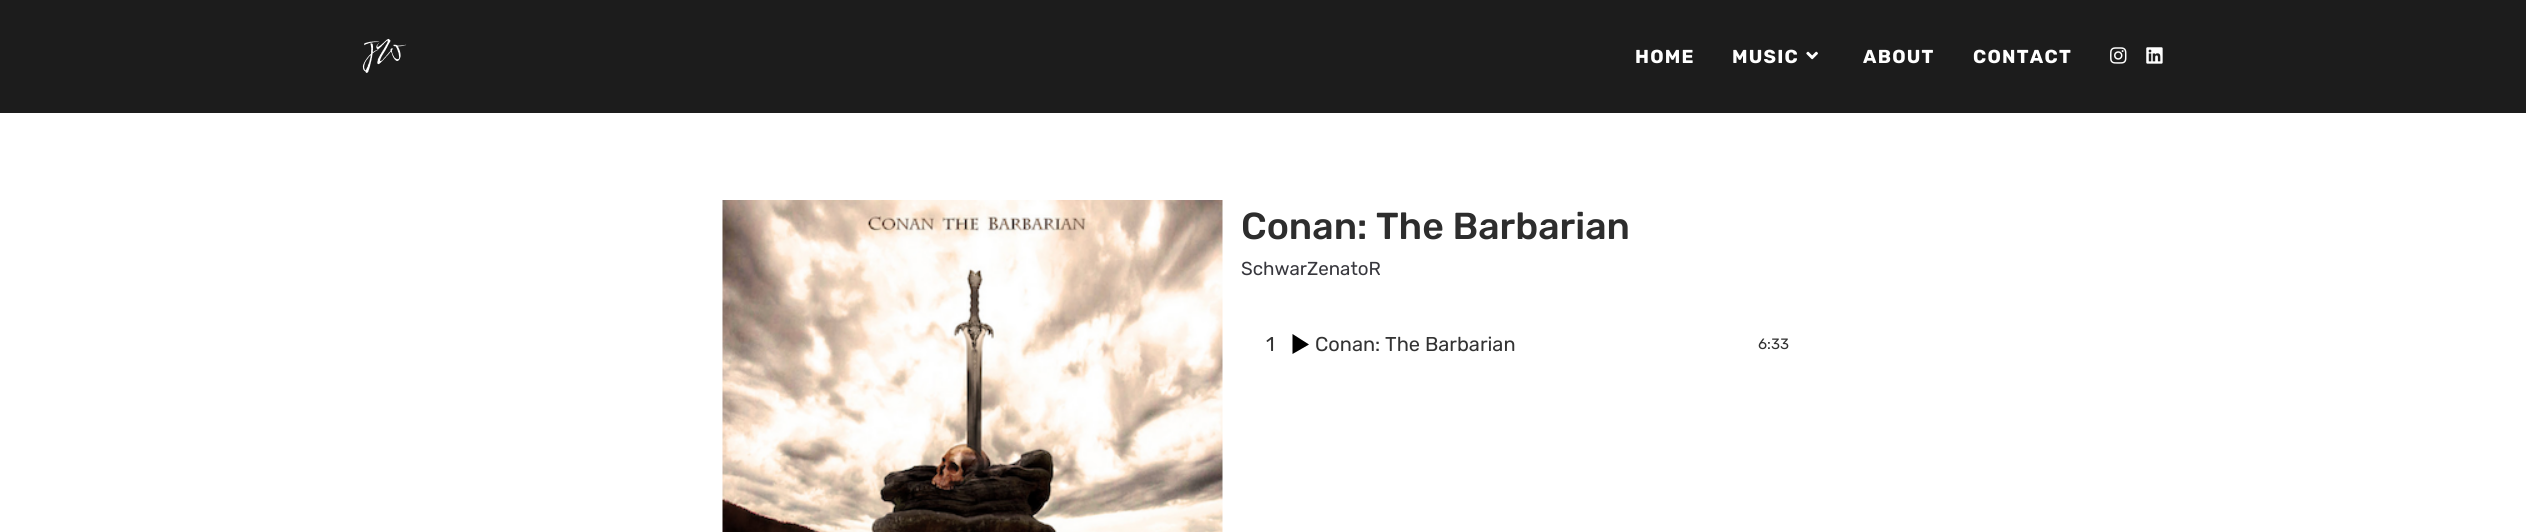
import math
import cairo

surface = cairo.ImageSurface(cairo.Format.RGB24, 2526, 532)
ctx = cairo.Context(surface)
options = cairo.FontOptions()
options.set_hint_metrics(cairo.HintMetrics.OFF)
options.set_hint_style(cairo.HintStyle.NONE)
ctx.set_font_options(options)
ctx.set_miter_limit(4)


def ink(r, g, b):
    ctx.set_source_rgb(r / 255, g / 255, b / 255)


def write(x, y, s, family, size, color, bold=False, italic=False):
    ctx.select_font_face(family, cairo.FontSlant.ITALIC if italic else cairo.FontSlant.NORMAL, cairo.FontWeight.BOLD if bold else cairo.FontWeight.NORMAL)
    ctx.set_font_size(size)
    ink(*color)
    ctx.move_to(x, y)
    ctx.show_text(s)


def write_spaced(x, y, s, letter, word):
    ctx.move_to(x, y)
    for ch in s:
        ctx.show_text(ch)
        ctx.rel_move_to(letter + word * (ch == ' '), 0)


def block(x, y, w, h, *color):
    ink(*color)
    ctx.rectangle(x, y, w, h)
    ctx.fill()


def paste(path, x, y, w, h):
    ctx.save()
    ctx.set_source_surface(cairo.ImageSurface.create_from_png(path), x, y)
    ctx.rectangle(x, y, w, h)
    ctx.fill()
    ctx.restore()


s1 = dict(family="Comforter Brush", size=30, color=(255, 255, 255))
s2 = dict(family="Rubik Medium", size=37.5, color=(45, 45, 45))
s3 = dict(family="Rubik", size=18.75, color=(55, 55, 61))
s4 = dict(family="Rubik", size=20, color=(51, 51, 51))
s5 = dict(family="Rubik", size=15, color=(51, 51, 51))

ink(255, 255, 255)
ctx.paint()
block(0, 0, 2526, 113, 28, 28, 28)
write(363, 62, "JW", **s1)
ctx.select_font_face("Rubik", cairo.FontSlant.NORMAL, cairo.FontWeight.BOLD)
ctx.set_font_size(18.75)
write_spaced(1635, 63, "HOME", 1.25, 0)
write_spaced(1732, 63, "MUSIC", 1.25, 0)
paste("pic1.png", 1806, 51, 12, 9)
write_spaced(1863, 63, "ABOUT", 1.25, 0)
write_spaced(1973, 63, "CONTACT", 1.25, 0)
paste("pic2.png", 2110, 47, 17, 17)
paste("pic3.png", 2146, 47, 17, 17)
paste("pic4.png", 722, 200, 501, 332)
write(1241, 239, "Conan: The Barbarian", **s2)
write(1241, 275, "SchwarZenatoR", **s3)
write(1266, 351, "1", **s4)
ink(0, 0, 0)
ctx.new_path()
ctx.move_to(1292.5, 334)
ctx.line_to(1309, 344.5)
ctx.line_to(1292.5, 354)
ctx.close_path()
ctx.fill()
write(1315, 351, "Conan: The Barbarian", **s4)
write(1758, 349, "6:33", **s5)
surface.write_to_png("screenshot.png")
